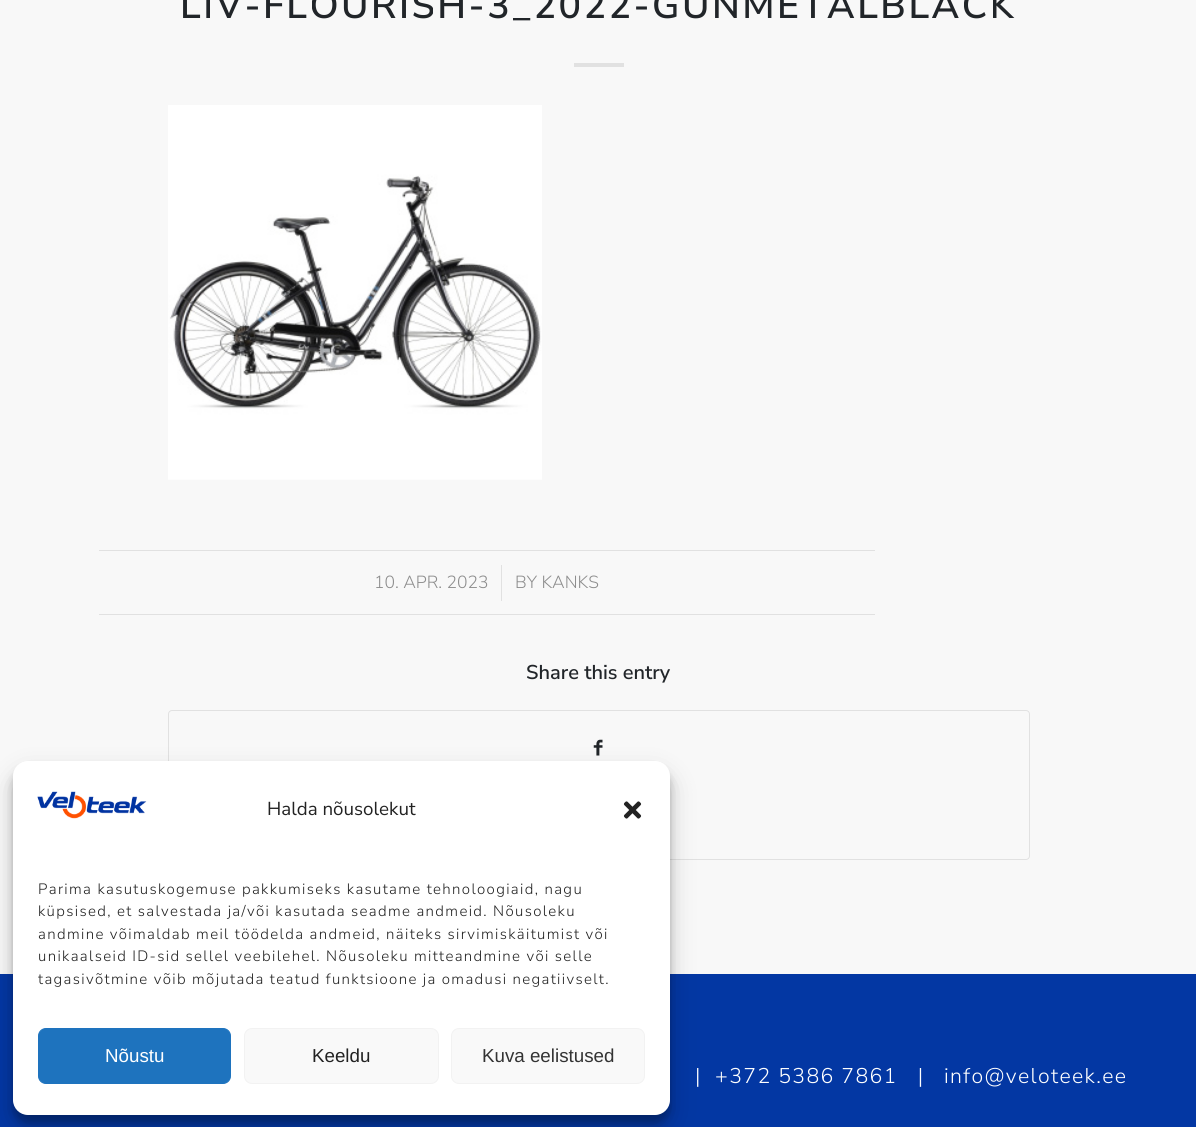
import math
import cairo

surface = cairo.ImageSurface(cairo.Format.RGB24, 1196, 1127)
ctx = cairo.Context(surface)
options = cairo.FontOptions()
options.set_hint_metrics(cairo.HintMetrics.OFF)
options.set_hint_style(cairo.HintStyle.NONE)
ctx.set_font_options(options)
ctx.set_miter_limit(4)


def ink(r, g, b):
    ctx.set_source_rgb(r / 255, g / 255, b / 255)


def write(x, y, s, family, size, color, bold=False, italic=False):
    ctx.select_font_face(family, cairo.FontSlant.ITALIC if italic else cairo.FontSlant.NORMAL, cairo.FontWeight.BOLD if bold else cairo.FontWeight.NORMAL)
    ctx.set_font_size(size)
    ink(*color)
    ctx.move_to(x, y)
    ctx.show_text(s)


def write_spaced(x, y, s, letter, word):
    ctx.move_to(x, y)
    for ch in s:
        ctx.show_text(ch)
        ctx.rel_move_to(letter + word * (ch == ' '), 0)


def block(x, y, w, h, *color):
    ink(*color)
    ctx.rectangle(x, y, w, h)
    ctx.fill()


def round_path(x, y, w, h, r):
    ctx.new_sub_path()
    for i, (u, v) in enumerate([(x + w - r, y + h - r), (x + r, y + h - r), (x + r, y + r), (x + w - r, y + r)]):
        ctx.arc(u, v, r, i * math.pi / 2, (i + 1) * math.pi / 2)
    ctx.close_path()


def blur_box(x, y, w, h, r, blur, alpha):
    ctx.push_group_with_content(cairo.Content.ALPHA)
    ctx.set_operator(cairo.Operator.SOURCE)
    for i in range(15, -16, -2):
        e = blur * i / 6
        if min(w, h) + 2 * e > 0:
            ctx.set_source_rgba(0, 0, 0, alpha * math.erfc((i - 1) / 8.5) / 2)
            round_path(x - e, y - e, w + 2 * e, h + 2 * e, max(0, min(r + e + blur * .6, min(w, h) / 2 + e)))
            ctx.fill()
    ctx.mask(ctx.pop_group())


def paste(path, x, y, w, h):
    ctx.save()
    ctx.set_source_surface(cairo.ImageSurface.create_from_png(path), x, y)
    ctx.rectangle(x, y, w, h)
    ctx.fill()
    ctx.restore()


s1 = dict(family="Nunito Sans Light", size=17.5, color=(141, 141, 141))
s2 = dict(family="Nunito Sans SemiBold", size=20, color=(33, 37, 41))
s3 = dict(family="Nunito Sans", size=18.75, color=(34, 34, 34))
s4 = dict(family="Liberation Sans", size=18.75, color=(255, 255, 255))
s5 = dict(family="Liberation Sans", size=18.75, color=(34, 34, 34))
s6 = dict(family="Liberation Sans", size=18.75, color=(51, 51, 51))

ink(248, 248, 248)
ctx.paint()
ctx.select_font_face("Nunito Sans SemiBold")
ctx.set_font_size(37.5)
ink(33, 37, 41)
write_spaced(180, 18, "LIV-FLOURISH-3_2022-GUNMETALBLACK", 2.5, 0)
block(574, 63, 50, 4, 225, 225, 225)
paste("pic1.png", 168, 105, 374, 375)
block(99, 550, 776, 1, 225, 225, 225)
block(99, 614, 776, 1, 225, 225, 225)
write(374, 588, "10. APR. 2023", **s1)
block(501, 565, 1, 36, 225, 225, 225)
write(515, 588, "BY KANKS", **s1)
write(526, 679, "Share this entry", **s2)
round_path(168.5, 710.5, 861, 149, 3.5)
ink(225, 225, 225)
ctx.set_line_width(1)
ctx.stroke()
paste("pic2.png", 593, 739, 10, 17)
block(0, 974, 1196, 153, 3, 55, 163)
ctx.select_font_face("Nunito Sans Light")
ctx.set_font_size(21.25)
ink(255, 255, 255)
write_spaced(695, 1083, "|  +372 5386 7861   |", 1.35, 0)
write_spaced(944, 1083, "info@veloteek.ee", 1.35, 0)
ink(0, 0, 0)
blur_box(13, 769, 657, 354, 15, 4, 0.23)
blur_box(13, 774, 657, 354, 15, 12.5, 0.19)
ink(255, 255, 255)
round_path(13, 761, 657, 354, 15)
ctx.fill()
paste("pic3.png", 37, 791, 110, 28)
write(267, 815, "Halda nõusolekut", **s3)
paste("pic4.png", 623, 801, 19, 18)
ctx.select_font_face("Nunito Sans Light")
ctx.set_font_size(15)
write_spaced(38, 894, "Parima kasutuskogemuse pakkumiseks kasutame tehnoloogiaid, nagu", 1.35, 0)
write_spaced(38, 916, "küpsised, et salvestada ja/või kasutada seadme andmeid. Nõusoleku", 1.35, 0)
write_spaced(38, 939, "andmine võimaldab meil töödelda andmeid, näiteks sirvimiskäitumist või", 1.35, 0)
write_spaced(38, 961, "unikaalseid ID-sid sellel veebilehel. Nõusoleku mitteandmine või selle", 1.35, 0)
write_spaced(38, 984, "tagasivõtmine võib mõjutada teatud funktsioone ja omadusi negatiivselt.", 1.35, 0)
ink(30, 115, 190)
round_path(38.5, 1028.5, 192, 55, 7.5)
ctx.fill_preserve()
ctx.stroke()
write(105, 1062, "Nõustu", **s4)
ink(249, 249, 249)
round_path(244.5, 1028.5, 194, 55, 7.5)
ctx.fill_preserve()
ink(242, 242, 242)
ctx.stroke()
write(312, 1062, "Keeldu", **s5)
ink(249, 249, 249)
round_path(451.5, 1028.5, 193, 55, 7.5)
ctx.fill_preserve()
ink(242, 242, 242)
ctx.stroke()
write(482, 1062, "Kuva eelistused", **s6)
surface.write_to_png("screenshot.png")
